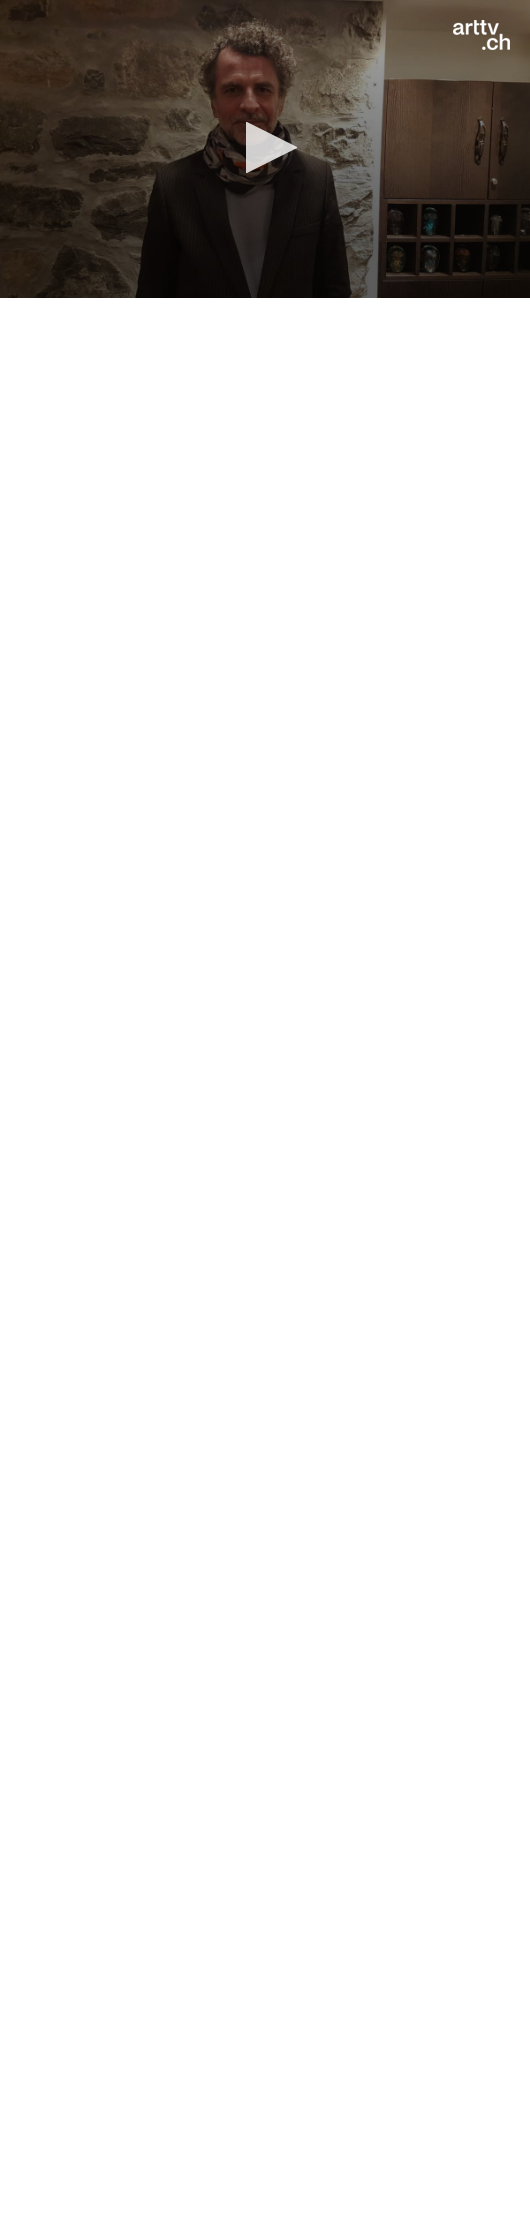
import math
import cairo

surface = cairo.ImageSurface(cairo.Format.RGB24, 530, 2228)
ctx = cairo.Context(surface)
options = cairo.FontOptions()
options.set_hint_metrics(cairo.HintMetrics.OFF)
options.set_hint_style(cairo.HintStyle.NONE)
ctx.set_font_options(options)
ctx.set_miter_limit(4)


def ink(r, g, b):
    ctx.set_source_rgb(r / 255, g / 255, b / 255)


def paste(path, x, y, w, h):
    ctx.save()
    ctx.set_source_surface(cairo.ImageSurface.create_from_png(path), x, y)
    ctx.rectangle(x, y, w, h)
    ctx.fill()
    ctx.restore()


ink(255, 255, 255)
ctx.paint()
paste("pic1.png", 0, 0, 530, 298)
paste("pic2.png", 453, 20, 57, 30)
ctx.set_source_rgba(1, 1, 1, 0.8)
ctx.new_path()
ctx.move_to(247, 173)
ctx.line_to(246, 173)
ctx.line_to(246, 122)
ctx.line_to(247, 122)
ctx.line_to(297, 147)
ctx.curve_to(297, 147, 297, 148, 297, 148)
ctx.close_path()
ctx.fill()
surface.write_to_png("screenshot.png")
